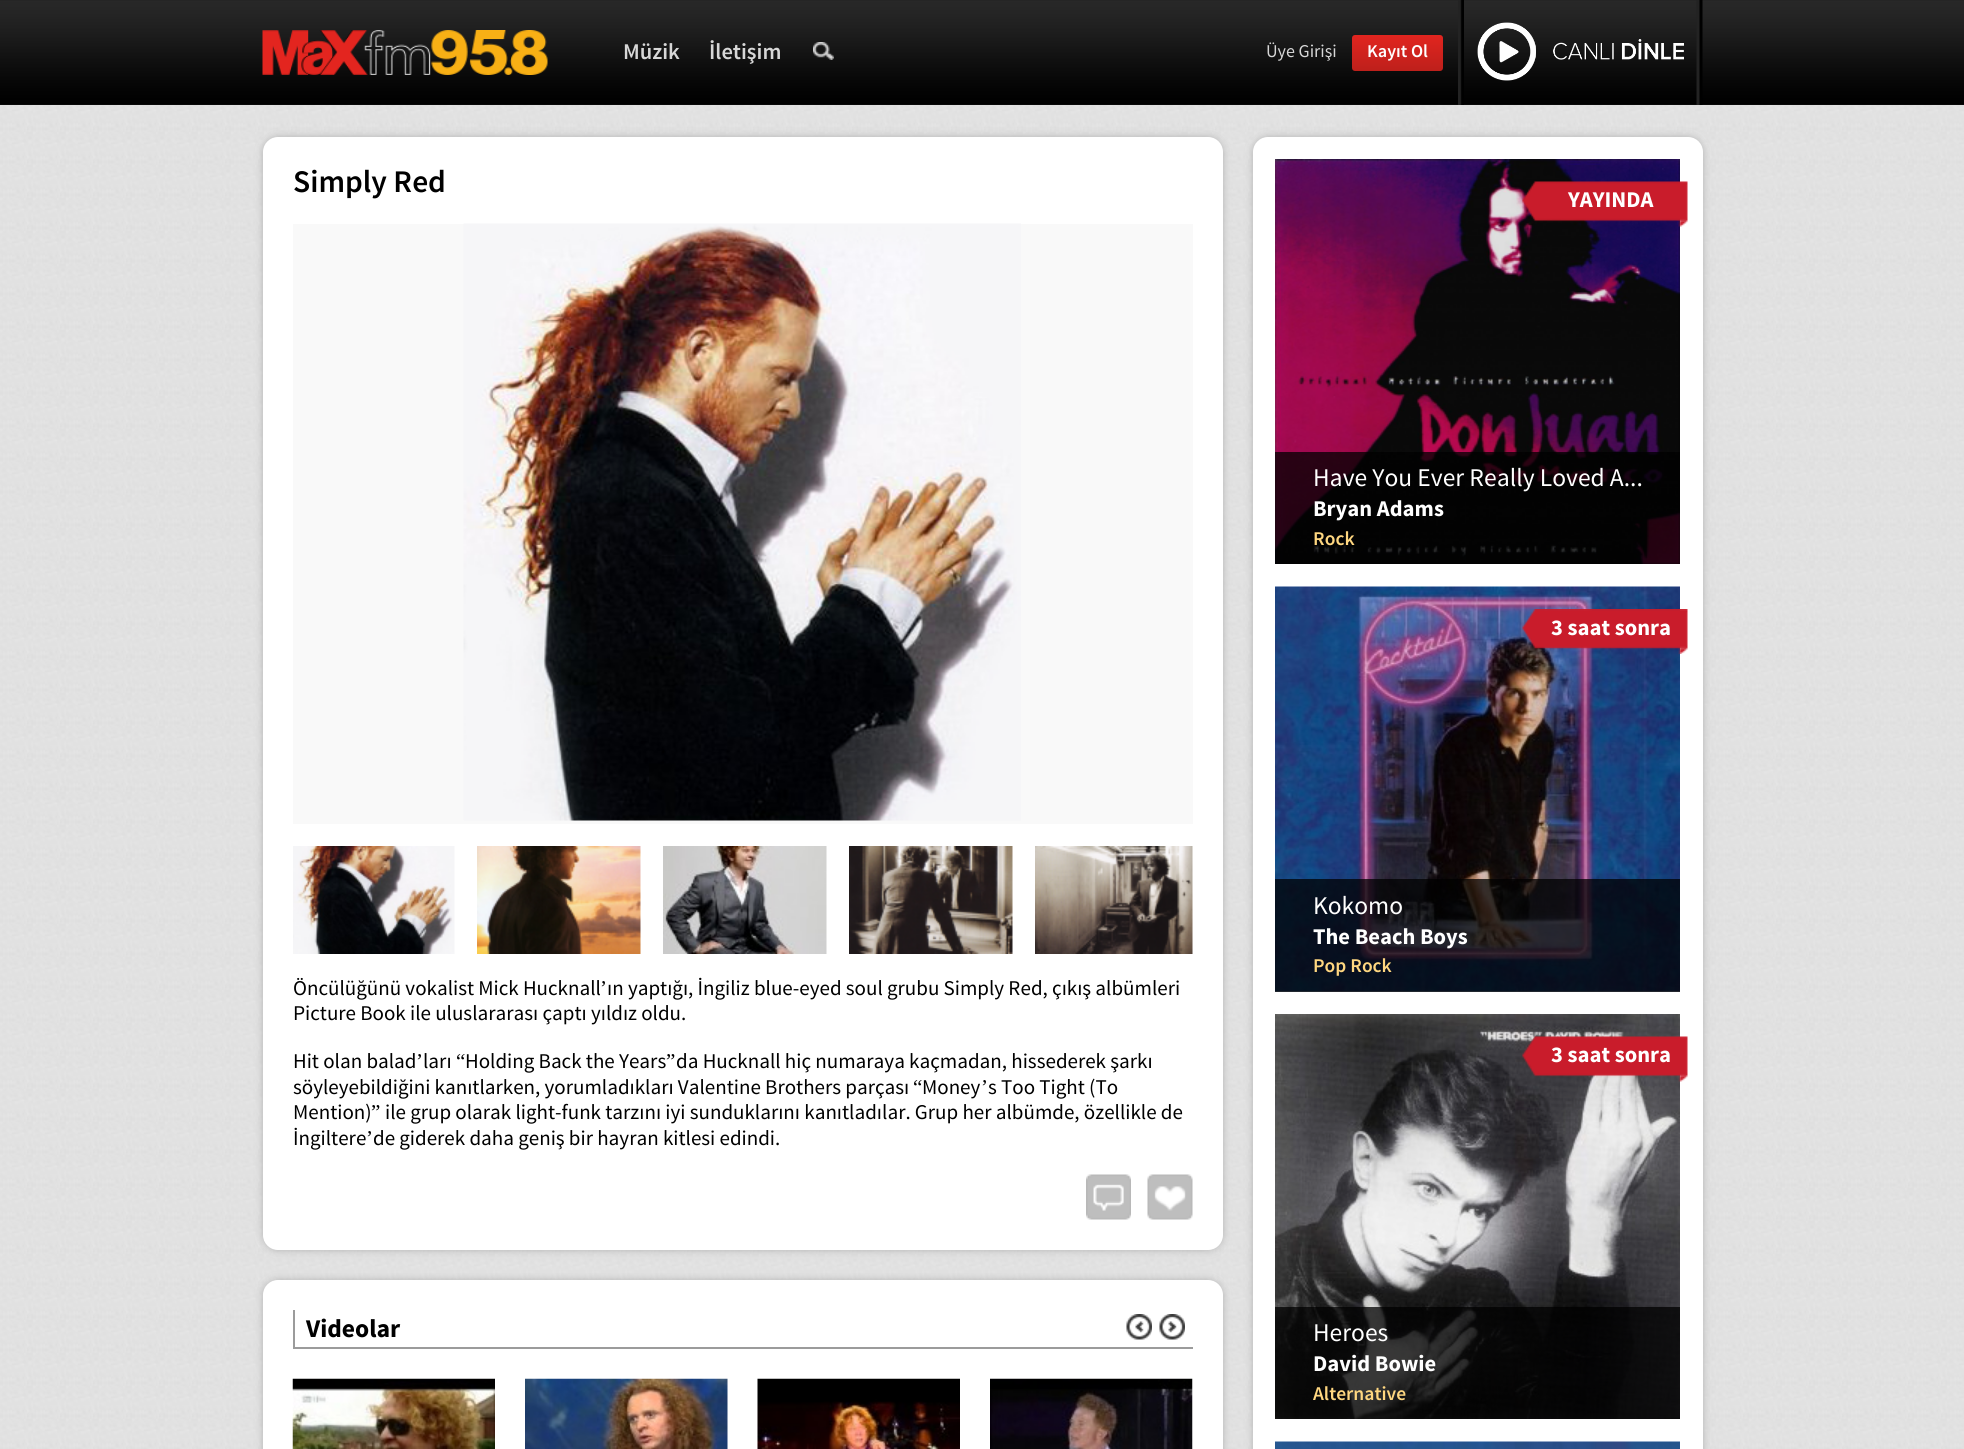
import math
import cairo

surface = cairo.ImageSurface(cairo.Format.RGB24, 1964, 1449)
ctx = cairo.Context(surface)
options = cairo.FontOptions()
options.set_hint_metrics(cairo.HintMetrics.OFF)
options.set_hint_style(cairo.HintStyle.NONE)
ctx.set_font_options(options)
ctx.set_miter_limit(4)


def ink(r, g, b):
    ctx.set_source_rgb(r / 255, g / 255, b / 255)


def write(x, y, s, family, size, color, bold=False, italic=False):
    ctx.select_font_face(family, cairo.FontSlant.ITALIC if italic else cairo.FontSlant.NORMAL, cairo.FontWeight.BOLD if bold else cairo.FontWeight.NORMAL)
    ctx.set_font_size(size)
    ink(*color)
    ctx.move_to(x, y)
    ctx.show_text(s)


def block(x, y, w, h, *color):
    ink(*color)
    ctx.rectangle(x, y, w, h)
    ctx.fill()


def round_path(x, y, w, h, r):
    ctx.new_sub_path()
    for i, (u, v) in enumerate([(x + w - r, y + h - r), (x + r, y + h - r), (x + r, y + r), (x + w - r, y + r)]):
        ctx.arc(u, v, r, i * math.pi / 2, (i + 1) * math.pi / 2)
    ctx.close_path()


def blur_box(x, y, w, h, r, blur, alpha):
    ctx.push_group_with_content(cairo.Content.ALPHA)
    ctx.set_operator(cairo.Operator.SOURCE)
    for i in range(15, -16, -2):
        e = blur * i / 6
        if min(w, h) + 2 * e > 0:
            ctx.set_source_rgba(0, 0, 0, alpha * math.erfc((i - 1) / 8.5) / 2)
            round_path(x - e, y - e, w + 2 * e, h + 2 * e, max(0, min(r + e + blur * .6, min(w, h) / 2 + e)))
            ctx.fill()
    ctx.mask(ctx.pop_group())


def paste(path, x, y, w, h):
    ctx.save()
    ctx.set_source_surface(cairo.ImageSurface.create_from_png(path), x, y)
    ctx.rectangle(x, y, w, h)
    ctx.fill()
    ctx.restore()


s1 = dict(family="Source Sans Pro SemiBold", size=22.5, color=(215, 215, 215))
s2 = dict(family="Source Sans Pro", size=18, color=(215, 215, 215))
s3 = dict(family="Source Sans Pro SemiBold", size=18, color=(255, 255, 255))
s4 = dict(family="Source Sans Pro SemiBold", size=31.5, color=(0, 0, 0))
s5 = dict(family="Source Sans Pro", size=21, color=(0, 0, 0))
s6 = dict(family="Liberation Serif", size=21, color=(0, 0, 0))
s7 = dict(family="Source Sans Pro", size=25.5, color=(0, 0, 0), bold=True)
s8 = dict(family="Source Sans Pro", size=22.5, color=(255, 255, 255), bold=True)
s9 = dict(family="Source Sans Pro", size=25.5, color=(255, 255, 255))
s10 = dict(family="Source Sans Pro SemiBold", size=19.5, color=(255, 215, 128))

ink(255, 255, 255)
ctx.paint()
paste("pic1.png", 0, 104, 1964, 1345)
paste("pic2.png", 0, 0, 1964, 105)
paste("pic3.png", 262, 30, 286, 45)
write(623, 59, "Müzik", **s1)
write(709, 59, "İletişim", **s1)
paste("pic4.png", 813, 42, 21, 18)
write(1266, 57, "Üye Girişi", **s2)
gradient = cairo.LinearGradient(1397, 34, 1397, 71)
gradient.add_color_stop_rgba(0, 0.89, 0.145, 0.122, 1)
gradient.add_color_stop_rgba(1, 0.745, 0.125, 0.106, 1)
ctx.set_source(gradient)
round_path(1352, 35, 91, 36, 3)
ctx.fill()
write(1367, 57, "Kayıt Ol", **s3)
paste("pic5.png", 1458, 0, 6, 105)
paste("pic6.png", 1477, 22, 207, 59)
paste("pic7.png", 1696, 0, 7, 105)
ink(179, 179, 179)
blur_box(263, 137, 960, 1113, 15, 4, 1)
ink(255, 255, 255)
round_path(263, 137, 960, 1113, 15)
ctx.fill()
write(293, 192, "Simply Red", **s4)
block(293, 224, 900, 600, 249, 249, 249)
paste("pic8.png", 463, 223, 558, 598)
paste("pic9.png", 293, 846, 162, 108)
paste("pic10.png", 477, 846, 164, 108)
paste("pic11.png", 663, 846, 164, 108)
paste("pic12.png", 849, 846, 164, 108)
paste("pic13.png", 1035, 846, 158, 108)
write(293, 995, "Öncülüğünü vokalist Mick Hucknall", **s5)
write(600, 995, "’", **s6)
write(607, 995, "ın yaptığı, İngiliz blue-eyed soul grubu Simply Red, çıkış albümleri", **s5)
write(293, 1020, "Picture Book ile uluslararası çaptı yıldız oldu.", **s5)
write(293, 1068, "Hit olan balad", **s5)
write(416, 1068, "’", **s6)
write(423, 1068, "ları", **s5)
write(456, 1068, "“", **s6)
write(465, 1068, "Holding Back the Years", **s5)
write(666, 1068, "”", **s6)
write(676, 1068, "da Hucknall hiç numaraya kaçmadan, hissederek şarkı", **s5)
write(293, 1094, "söyleyebildiğini kanıtlarken, yorumladıkları Valentine Brothers parçası", **s5)
write(913, 1094, "“", **s6)
write(922, 1094, "Money", **s5)
write(981, 1094, "’", **s6)
write(988, 1094, "s Too Tight (To", **s5)
write(293, 1119, "Mention)", **s5)
write(371, 1119, "”", **s6)
write(385, 1119, "ile grup olarak light-funk tarzını iyi sunduklarını kanıtladılar. Grup her albümde, özellikle de", **s5)
write(293, 1145, "İngiltere", **s5)
write(366, 1145, "’", **s6)
write(373, 1145, "de giderek daha geniş bir hayran kitlesi edindi.", **s5)
paste("pic14.png", 1086, 1174, 45, 46)
paste("pic15.png", 1147, 1174, 46, 46)
ink(179, 179, 179)
blur_box(263, 1280, 960, 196, 15, 4, 1)
ink(255, 255, 255)
round_path(263, 1280, 960, 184, 15)
ctx.fill()
block(293, 1347, 900, 2, 155, 155, 155)
block(293, 1310, 2, 39, 155, 155, 155)
write(306, 1337, "Videolar", **s7)
paste("pic16.png", 1126, 1314, 26, 26)
paste("pic17.png", 1159, 1314, 26, 26)
paste("pic18.png", 292, 1378, 203, 71)
paste("pic19.png", 525, 1378, 203, 71)
paste("pic20.png", 757, 1378, 203, 71)
paste("pic21.png", 990, 1378, 203, 71)
ink(179, 179, 179)
blur_box(1253, 137, 450, 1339, 15, 4, 1)
ink(255, 255, 255)
round_path(1253, 137, 450, 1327, 15)
ctx.fill()
paste("pic22.png", 1275, 159, 405, 405)
paste("pic23.png", 1522, 181, 166, 46)
write(1568, 207, "YAYINDA", **s8)
ctx.set_source_rgba(0, 0, 0, 0.75)
ctx.rectangle(1275, 452, 405, 112)
ctx.fill()
write(1313, 486, "Have You Ever Really Loved A...", **s9)
write(1313, 516, "Bryan Adams", **s8)
write(1313, 545, "Rock", **s10)
paste("pic24.png", 1275, 586, 405, 406)
ctx.set_source_rgba(0, 0, 0, 0.05)
ctx.rectangle(1275, 587, 405, 405)
ctx.fill()
paste("pic25.png", 1522, 609, 166, 45)
write(1551, 635, "3 saat sonra", **s8)
ctx.set_source_rgba(0, 0, 0, 0.75)
ctx.rectangle(1275, 879, 405, 113)
ctx.fill()
write(1313, 914, "Kokomo", **s9)
write(1313, 944, "The Beach Boys", **s8)
write(1313, 972, "Pop Rock", **s10)
paste("pic26.png", 1275, 1014, 405, 405)
paste("pic27.png", 1522, 1036, 166, 46)
write(1551, 1062, "3 saat sonra", **s8)
ctx.set_source_rgba(0, 0, 0, 0.75)
ctx.rectangle(1275, 1307, 405, 112)
ctx.fill()
write(1313, 1341, "Heroes", **s9)
write(1313, 1371, "David Bowie", **s8)
write(1313, 1400, "Alternative", **s10)
paste("pic28.png", 1275, 1441, 405, 8)
ctx.set_source_rgba(0, 0, 0, 0.05)
ctx.rectangle(1275, 1442, 405, 7)
ctx.fill()
surface.write_to_png("screenshot.png")
